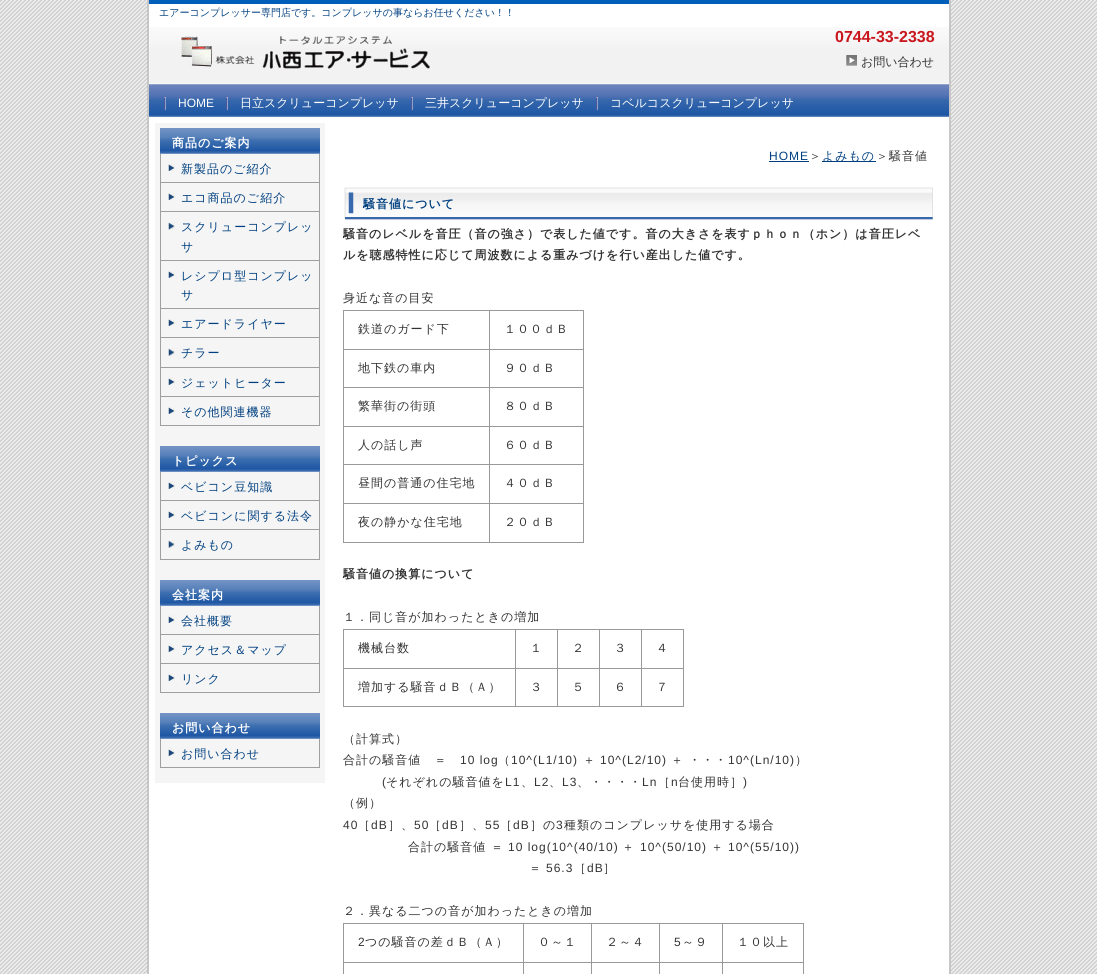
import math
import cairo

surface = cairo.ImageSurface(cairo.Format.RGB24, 1097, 974)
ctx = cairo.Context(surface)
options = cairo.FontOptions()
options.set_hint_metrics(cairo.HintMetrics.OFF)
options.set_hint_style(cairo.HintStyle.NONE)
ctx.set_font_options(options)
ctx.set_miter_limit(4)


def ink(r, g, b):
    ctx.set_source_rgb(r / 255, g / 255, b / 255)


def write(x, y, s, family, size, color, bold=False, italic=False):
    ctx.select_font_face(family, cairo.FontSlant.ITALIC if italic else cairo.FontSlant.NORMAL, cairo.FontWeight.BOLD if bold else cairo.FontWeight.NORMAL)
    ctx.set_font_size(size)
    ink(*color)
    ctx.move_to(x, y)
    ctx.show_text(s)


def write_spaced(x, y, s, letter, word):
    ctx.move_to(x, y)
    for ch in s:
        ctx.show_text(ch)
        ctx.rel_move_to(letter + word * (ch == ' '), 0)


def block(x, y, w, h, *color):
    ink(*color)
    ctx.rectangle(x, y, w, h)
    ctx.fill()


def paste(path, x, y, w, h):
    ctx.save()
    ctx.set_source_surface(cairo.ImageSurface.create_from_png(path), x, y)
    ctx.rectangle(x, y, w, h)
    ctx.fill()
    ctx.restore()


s1 = dict(family="WenQuanYi Zen Hei Medium", size=10, color=(0, 64, 128))
s2 = dict(family="Liberation Sans", size=16, color=(201, 23, 30), bold=True)
s3 = dict(family="WenQuanYi Zen Hei Medium", size=12, color=(51, 51, 51))
s4 = dict(family="Liberation Sans", size=12, color=(255, 255, 255))
s5 = dict(family="WenQuanYi Zen Hei Medium", size=12, color=(255, 255, 255))

ink(255, 255, 255)
ctx.paint()
paste("pic1.png", 0, 0, 1097, 974)
block(149, 4, 800, 970, 255, 255, 255)
block(949, 0, 2, 974, 198, 198, 198)
block(147, 0, 2, 974, 198, 198, 198)
paste("pic2.png", 149, 27, 800, 57)
block(149, 0, 800, 4, 0, 94, 187)
write(159, 16, "エアーコンプレッサー専門店です。コンプレッサの事ならお任せください！！", **s1)
write(835, 42, "0744-33-2338", **s2)
paste("pic3.png", 846, 55, 11, 11)
write(861, 66, "お問い合わせ", **s3)
paste("pic4.png", 149, 84, 800, 33)
paste("pic5.png", 164, 97, 2, 13)
write(178, 107, "HOME", **s4)
paste("pic5.png", 226, 97, 2, 13)
write(240, 107, "日立スクリューコンプレッサ", **s5)
paste("pic5.png", 411, 97, 2, 13)
write(425, 107, "三井スクリューコンプレッサ", **s5)
paste("pic5.png", 596, 97, 2, 13)
write(610, 107, "コベルコスクリューコンプレッサ", **s5)
block(155, 123, 170, 660, 245, 245, 245)
paste("pic6.png", 160, 128, 160, 26)
ctx.select_font_face("WenQuanYi Zen Hei", cairo.FontSlant.NORMAL, cairo.FontWeight.BOLD)
ink(255, 255, 255)
write_spaced(172, 147, "商品のご案内", 1, 0)
paste("pic7.png", 168, 163, 7, 8)
block(319, 154, 1, 272, 159, 159, 159)
block(160, 182, 160, 1, 159, 159, 159)
block(160, 154, 1, 29, 159, 159, 159)
ctx.select_font_face("WenQuanYi Zen Hei Medium")
ink(0, 64, 128)
write_spaced(181, 173, "新製品のご紹介", 1, 0)
paste("pic7.png", 168, 192, 7, 8)
block(160, 211, 160, 1, 159, 159, 159)
block(160, 183, 1, 29, 159, 159, 159)
ink(0, 64, 128)
write_spaced(181, 202, "エコ商品のご紹介", 1, 0)
paste("pic8.png", 168, 222, 7, 8)
block(160, 260, 160, 1, 159, 159, 159)
block(160, 212, 1, 49, 159, 159, 159)
ink(0, 64, 128)
write_spaced(181, 231, "スクリューコンプレッ", 1, 0)
write_spaced(181, 251, "サ", 1, 0)
paste("pic9.png", 168, 270, 7, 8)
block(160, 308, 160, 1, 159, 159, 159)
block(160, 261, 1, 48, 159, 159, 159)
ink(0, 64, 128)
write_spaced(181, 280, "レシプロ型コンプレッ", 1, 0)
write_spaced(181, 299, "サ", 1, 0)
paste("pic7.png", 168, 318, 7, 8)
block(160, 337, 160, 1, 159, 159, 159)
block(160, 309, 1, 29, 159, 159, 159)
ink(0, 64, 128)
write_spaced(181, 328, "エアードライヤー", 1, 0)
paste("pic10.png", 168, 348, 7, 8)
block(160, 367, 160, 1, 159, 159, 159)
block(160, 338, 1, 30, 159, 159, 159)
ink(0, 64, 128)
write_spaced(181, 357, "チラー", 1, 0)
paste("pic7.png", 168, 377, 7, 8)
block(160, 396, 160, 1, 159, 159, 159)
block(160, 368, 1, 29, 159, 159, 159)
ink(0, 64, 128)
write_spaced(181, 387, "ジェットヒーター", 1, 0)
paste("pic7.png", 168, 406, 7, 8)
block(160, 425, 160, 1, 159, 159, 159)
block(160, 397, 1, 29, 159, 159, 159)
ink(0, 64, 128)
write_spaced(181, 416, "その他関連機器", 1, 0)
paste("pic6.png", 160, 446, 160, 26)
ctx.select_font_face("WenQuanYi Zen Hei", cairo.FontSlant.NORMAL, cairo.FontWeight.BOLD)
ink(255, 255, 255)
write_spaced(172, 465, "トピックス", 1, 0)
paste("pic7.png", 168, 481, 7, 8)
block(319, 472, 1, 88, 159, 159, 159)
block(160, 500, 160, 1, 159, 159, 159)
block(160, 472, 1, 29, 159, 159, 159)
ctx.select_font_face("WenQuanYi Zen Hei Medium")
ink(0, 64, 128)
write_spaced(181, 491, "ベビコン豆知識", 1, 0)
paste("pic7.png", 168, 510, 7, 8)
block(160, 529, 160, 1, 159, 159, 159)
block(160, 501, 1, 29, 159, 159, 159)
ink(0, 64, 128)
write_spaced(181, 520, "ベビコンに関する法令", 1, 0)
paste("pic10.png", 168, 540, 7, 8)
block(160, 559, 160, 1, 159, 159, 159)
block(160, 530, 1, 30, 159, 159, 159)
ink(0, 64, 128)
write_spaced(181, 549, "よみもの", 1, 0)
paste("pic6.png", 160, 580, 160, 26)
ctx.select_font_face("WenQuanYi Zen Hei", cairo.FontSlant.NORMAL, cairo.FontWeight.BOLD)
ink(255, 255, 255)
write_spaced(172, 599, "会社案内", 1, 0)
paste("pic7.png", 168, 615, 7, 8)
block(319, 606, 1, 87, 159, 159, 159)
block(160, 634, 160, 1, 159, 159, 159)
block(160, 606, 1, 29, 159, 159, 159)
ctx.select_font_face("WenQuanYi Zen Hei Medium")
ink(0, 64, 128)
write_spaced(181, 625, "会社概要", 1, 0)
paste("pic7.png", 168, 644, 7, 8)
block(160, 663, 160, 1, 159, 159, 159)
block(160, 635, 1, 29, 159, 159, 159)
ink(0, 64, 128)
write_spaced(181, 654, "アクセス＆マップ", 1, 0)
paste("pic7.png", 168, 673, 7, 8)
block(160, 692, 160, 1, 159, 159, 159)
block(160, 664, 1, 29, 159, 159, 159)
ink(0, 64, 128)
write_spaced(181, 683, "リンク", 1, 0)
paste("pic6.png", 160, 713, 160, 26)
ctx.select_font_face("WenQuanYi Zen Hei", cairo.FontSlant.NORMAL, cairo.FontWeight.BOLD)
ink(255, 255, 255)
write_spaced(172, 732, "お問い合わせ", 1, 0)
paste("pic7.png", 168, 748, 7, 8)
block(319, 739, 1, 29, 159, 159, 159)
block(160, 767, 160, 1, 159, 159, 159)
block(160, 739, 1, 29, 159, 159, 159)
ctx.select_font_face("WenQuanYi Zen Hei Medium")
ink(0, 64, 128)
write_spaced(181, 758, "お問い合わせ", 1, 0)
ctx.select_font_face("Liberation Sans")
write_spaced(769, 160, "HOME", 1, 0)
block(769, 161, 40, 1, 0, 64, 128)
ctx.select_font_face("WenQuanYi Zen Hei Medium")
ink(51, 51, 51)
write_spaced(809, 160, "＞", 1, 0)
block(822, 161, 54, 1, 0, 64, 128)
write_spaced(822, 160, "よみもの", 1, 0)
ink(51, 51, 51)
write_spaced(876, 160, "＞騒音値", 1, 0)
paste("pic11.png", 344, 187, 589, 33)
ctx.select_font_face("WenQuanYi Zen Hei", cairo.FontSlant.NORMAL, cairo.FontWeight.BOLD)
ink(0, 64, 128)
write_spaced(363, 208, "騒音値について", 1, 0)
ink(51, 51, 51)
write_spaced(343, 238, "騒音のレベルを音圧（音の強さ）で表した値です。音の大きさを表すｐｈｏｎ（ホン）は音圧レベ", 1, 0)
write_spaced(343, 259, "ルを聴感特性に応じて周波数による重みづけを行い産出した値です。", 1, 0)
ctx.select_font_face("WenQuanYi Zen Hei Medium")
write_spaced(343, 302, "身近な音の目安", 1, 0)
block(343, 310, 241, 1, 153, 153, 153)
block(583, 310, 1, 233, 153, 153, 153)
block(343, 542, 241, 1, 153, 153, 153)
block(343, 310, 1, 233, 153, 153, 153)
ink(51, 51, 51)
write_spaced(358, 333, "鉄道のガード下", 1, 0)
block(489, 349, 95, 1, 153, 153, 153)
block(489, 387, 95, 1, 153, 153, 153)
block(489, 426, 95, 1, 153, 153, 153)
block(489, 464, 95, 1, 153, 153, 153)
block(489, 503, 95, 1, 153, 153, 153)
block(489, 503, 1, 40, 153, 153, 153)
block(343, 503, 147, 1, 153, 153, 153)
block(489, 464, 1, 40, 153, 153, 153)
block(343, 464, 147, 1, 153, 153, 153)
block(489, 426, 1, 39, 153, 153, 153)
block(343, 426, 147, 1, 153, 153, 153)
block(489, 387, 1, 40, 153, 153, 153)
block(343, 387, 147, 1, 153, 153, 153)
block(489, 349, 1, 39, 153, 153, 153)
block(343, 349, 147, 1, 153, 153, 153)
block(489, 310, 1, 40, 153, 153, 153)
ink(51, 51, 51)
write_spaced(504, 333, "１００ｄＢ", 1, 0)
write_spaced(358, 372, "地下鉄の車内", 1, 0)
write_spaced(504, 372, "９０ｄＢ", 1, 0)
write_spaced(358, 410, "繁華街の街頭", 1, 0)
write_spaced(504, 410, "８０ｄＢ", 1, 0)
write_spaced(358, 449, "人の話し声", 1, 0)
write_spaced(504, 449, "６０ｄＢ", 1, 0)
write_spaced(358, 487, "昼間の普通の住宅地", 1, 0)
write_spaced(504, 487, "４０ｄＢ", 1, 0)
write_spaced(358, 526, "夜の静かな住宅地", 1, 0)
write_spaced(504, 526, "２０ｄＢ", 1, 0)
ctx.select_font_face("WenQuanYi Zen Hei", cairo.FontSlant.NORMAL, cairo.FontWeight.BOLD)
write_spaced(343, 578, "騒音値の換算について", 1, 0)
ctx.select_font_face("WenQuanYi Zen Hei Medium")
write_spaced(343, 621, "１．同じ音が加わったときの増加", 1, 0)
block(343, 629, 341, 1, 153, 153, 153)
block(683, 629, 1, 78, 153, 153, 153)
block(343, 706, 341, 1, 153, 153, 153)
block(343, 629, 1, 78, 153, 153, 153)
ink(51, 51, 51)
write_spaced(358, 652, "機械台数", 1, 0)
block(641, 668, 43, 1, 153, 153, 153)
block(641, 668, 1, 39, 153, 153, 153)
block(599, 668, 43, 1, 153, 153, 153)
block(599, 668, 1, 39, 153, 153, 153)
block(557, 668, 43, 1, 153, 153, 153)
block(557, 668, 1, 39, 153, 153, 153)
block(515, 668, 43, 1, 153, 153, 153)
block(515, 668, 1, 39, 153, 153, 153)
block(343, 668, 173, 1, 153, 153, 153)
block(515, 629, 1, 40, 153, 153, 153)
ink(51, 51, 51)
write_spaced(530, 652, "１", 1, 0)
block(557, 629, 1, 40, 153, 153, 153)
ink(51, 51, 51)
write_spaced(572, 652, "２", 1, 0)
block(599, 629, 1, 40, 153, 153, 153)
ink(51, 51, 51)
write_spaced(614, 652, "３", 1, 0)
block(641, 629, 1, 40, 153, 153, 153)
ink(51, 51, 51)
write_spaced(656, 652, "４", 1, 0)
write_spaced(358, 691, "増加する騒音ｄＢ（Ａ）", 1, 0)
write_spaced(530, 691, "３", 1, 0)
write_spaced(572, 691, "５", 1, 0)
write_spaced(614, 691, "６", 1, 0)
write_spaced(656, 691, "７", 1, 0)
write_spaced(343, 743, "（計算式）", 1, 0)
write_spaced(343, 764, "合計の騒音値　＝", 1, 0)
ctx.select_font_face("Liberation Sans")
write_spaced(460, 764, "10 log", 1, 0)
ctx.select_font_face("WenQuanYi Zen Hei Medium")
write_spaced(498, 764, "（", 1, 0)
ctx.select_font_face("Liberation Sans")
write_spaced(511, 764, "10^(L1/10)", 1, 0)
ctx.select_font_face("WenQuanYi Zen Hei Medium")
write_spaced(583, 764, "＋", 1, 0)
ctx.select_font_face("Liberation Sans")
write_spaced(600, 764, "10^(L2/10)", 1, 0)
ctx.select_font_face("WenQuanYi Zen Hei Medium")
write_spaced(671, 764, "＋ ・・・", 1, 0)
ctx.select_font_face("Liberation Sans")
write_spaced(728, 764, "10^(Ln/10)", 1, 0)
ctx.select_font_face("WenQuanYi Zen Hei Medium")
write_spaced(795, 764, "）", 1, 0)
ctx.select_font_face("Liberation Sans")
write_spaced(382, 786, "(", 1, 0)
ctx.select_font_face("WenQuanYi Zen Hei Medium")
write_spaced(386, 786, "それぞれの騒音値を", 1, 0)
ctx.select_font_face("Liberation Sans")
write_spaced(505, 786, "L1", 1, 0)
ctx.select_font_face("WenQuanYi Zen Hei Medium")
write_spaced(521, 786, "、", 1, 0)
ctx.select_font_face("Liberation Sans")
write_spaced(534, 786, "L2", 1, 0)
ctx.select_font_face("WenQuanYi Zen Hei Medium")
write_spaced(549, 786, "、", 1, 0)
ctx.select_font_face("Liberation Sans")
write_spaced(562, 786, "L3", 1, 0)
ctx.select_font_face("WenQuanYi Zen Hei Medium")
write_spaced(577, 786, "、・・・・", 1, 0)
ctx.select_font_face("Liberation Sans")
write_spaced(642, 786, "Ln", 1, 0)
ctx.select_font_face("WenQuanYi Zen Hei Medium")
write_spaced(658, 786, "［", 1, 0)
ctx.select_font_face("Liberation Sans")
write_spaced(671, 786, "n", 1, 0)
ctx.select_font_face("WenQuanYi Zen Hei Medium")
write_spaced(678, 786, "台使用時］", 1, 0)
ctx.select_font_face("Liberation Sans")
write_spaced(743, 786, ")", 1, 0)
ctx.select_font_face("WenQuanYi Zen Hei Medium")
write_spaced(343, 807, "（例）", 1, 0)
ctx.select_font_face("Liberation Sans")
write_spaced(343, 829, "40", 1, 0)
ctx.select_font_face("WenQuanYi Zen Hei Medium")
write_spaced(358, 829, "［", 1, 0)
ctx.select_font_face("Liberation Sans")
write_spaced(371, 829, "dB", 1, 0)
ctx.select_font_face("WenQuanYi Zen Hei Medium")
write_spaced(388, 829, "］、", 1, 0)
ctx.select_font_face("Liberation Sans")
write_spaced(414, 829, "50", 1, 0)
ctx.select_font_face("WenQuanYi Zen Hei Medium")
write_spaced(429, 829, "［", 1, 0)
ctx.select_font_face("Liberation Sans")
write_spaced(442, 829, "dB", 1, 0)
ctx.select_font_face("WenQuanYi Zen Hei Medium")
write_spaced(459, 829, "］、", 1, 0)
ctx.select_font_face("Liberation Sans")
write_spaced(485, 829, "55", 1, 0)
ctx.select_font_face("WenQuanYi Zen Hei Medium")
write_spaced(500, 829, "［", 1, 0)
ctx.select_font_face("Liberation Sans")
write_spaced(513, 829, "dB", 1, 0)
ctx.select_font_face("WenQuanYi Zen Hei Medium")
write_spaced(530, 829, "］の", 1, 0)
ctx.select_font_face("Liberation Sans")
write_spaced(556, 829, "3", 1, 0)
ctx.select_font_face("WenQuanYi Zen Hei Medium")
write_spaced(564, 829, "種類のコンプレッサを使用する場合", 1, 0)
write_spaced(408, 851, "合計の騒音値 ＝", 1, 0)
ctx.select_font_face("Liberation Sans")
write_spaced(508, 851, "10 log(10^(40/10)", 1, 0)
ctx.select_font_face("WenQuanYi Zen Hei Medium")
write_spaced(622, 851, "＋", 1, 0)
ctx.select_font_face("Liberation Sans")
write_spaced(640, 851, "10^(50/10)", 1, 0)
ctx.select_font_face("WenQuanYi Zen Hei Medium")
write_spaced(711, 851, "＋", 1, 0)
ctx.select_font_face("Liberation Sans")
write_spaced(728, 851, "10^(55/10))", 1, 0)
ctx.select_font_face("WenQuanYi Zen Hei Medium")
write_spaced(529, 872, "＝", 1, 0)
ctx.select_font_face("Liberation Sans")
write_spaced(546, 872, "56.3", 1, 0)
ctx.select_font_face("WenQuanYi Zen Hei Medium")
write_spaced(574, 872, "［", 1, 0)
ctx.select_font_face("Liberation Sans")
write_spaced(587, 872, "dB", 1, 0)
ctx.select_font_face("WenQuanYi Zen Hei Medium")
write_spaced(603, 872, "］", 1, 0)
write_spaced(343, 915, "２．異なる二つの音が加わったときの増加", 1, 0)
block(343, 923, 461, 1, 153, 153, 153)
block(803, 923, 1, 51, 153, 153, 153)
block(343, 923, 1, 51, 153, 153, 153)
ctx.select_font_face("Liberation Sans")
ink(51, 51, 51)
write_spaced(358, 946, "2", 1, 0)
ctx.select_font_face("WenQuanYi Zen Hei Medium")
write_spaced(365, 946, "つの騒音の差ｄＢ（Ａ）", 1, 0)
block(722, 962, 82, 1, 153, 153, 153)
block(722, 962, 1, 12, 153, 153, 153)
block(659, 962, 64, 1, 153, 153, 153)
block(659, 962, 1, 12, 153, 153, 153)
block(591, 962, 69, 1, 153, 153, 153)
block(591, 962, 1, 12, 153, 153, 153)
block(523, 962, 69, 1, 153, 153, 153)
block(523, 962, 1, 12, 153, 153, 153)
block(343, 962, 181, 1, 153, 153, 153)
block(523, 923, 1, 40, 153, 153, 153)
ink(51, 51, 51)
write_spaced(538, 946, "０～１", 1, 0)
block(591, 923, 1, 40, 153, 153, 153)
ink(51, 51, 51)
write_spaced(606, 946, "２～４", 1, 0)
block(659, 923, 1, 40, 153, 153, 153)
ctx.select_font_face("Liberation Sans")
ink(51, 51, 51)
write_spaced(674, 946, "5", 1, 0)
ctx.select_font_face("WenQuanYi Zen Hei Medium")
write_spaced(682, 946, "～９", 1, 0)
block(722, 923, 1, 40, 153, 153, 153)
ink(51, 51, 51)
write_spaced(737, 946, "１０以上", 1, 0)
surface.write_to_png("screenshot.png")
